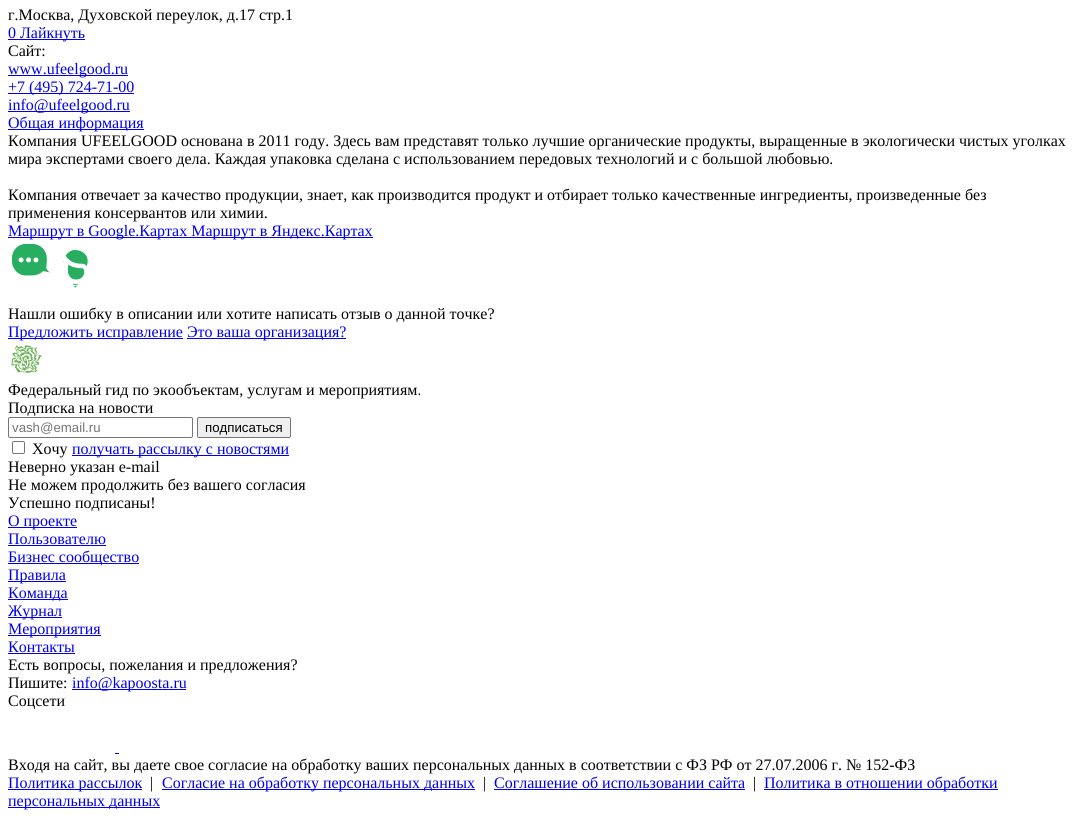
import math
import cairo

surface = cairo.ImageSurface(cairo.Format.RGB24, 1079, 818)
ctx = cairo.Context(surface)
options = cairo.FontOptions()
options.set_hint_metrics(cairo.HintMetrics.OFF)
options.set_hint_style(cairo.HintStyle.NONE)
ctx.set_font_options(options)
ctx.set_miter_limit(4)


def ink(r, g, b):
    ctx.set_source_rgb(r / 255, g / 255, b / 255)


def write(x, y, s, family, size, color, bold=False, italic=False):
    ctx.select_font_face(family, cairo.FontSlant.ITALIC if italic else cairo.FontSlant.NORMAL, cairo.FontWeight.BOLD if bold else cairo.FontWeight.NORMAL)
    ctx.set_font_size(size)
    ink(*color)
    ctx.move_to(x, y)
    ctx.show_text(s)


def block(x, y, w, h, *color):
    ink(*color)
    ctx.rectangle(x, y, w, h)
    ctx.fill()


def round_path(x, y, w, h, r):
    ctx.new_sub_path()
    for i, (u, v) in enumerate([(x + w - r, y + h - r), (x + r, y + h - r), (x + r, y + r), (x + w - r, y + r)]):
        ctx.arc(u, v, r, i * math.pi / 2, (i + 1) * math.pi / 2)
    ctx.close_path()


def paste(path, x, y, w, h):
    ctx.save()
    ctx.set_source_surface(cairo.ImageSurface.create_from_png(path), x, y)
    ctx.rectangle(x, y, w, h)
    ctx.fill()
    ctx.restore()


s1 = dict(family="Liberation Serif", size=16, color=(0, 0, 0))
s2 = dict(family="Liberation Serif", size=16, color=(0, 0, 238))
s3 = dict(family="Liberation Sans", size=13.25, color=(117, 117, 117))
s4 = dict(family="Liberation Sans", size=13.25, color=(0, 0, 0))

ink(255, 255, 255)
ctx.paint()
write(8, 20, "г.Москва, Духовской переулок, д.17 стр.1", **s1)
block(8, 39, 77, 1, 0, 0, 238)
write(8, 38, "0 Лайкнуть", **s2)
write(8, 56, "Сайт:", **s1)
block(8, 75, 120, 1, 0, 0, 238)
write(8, 74, "www.ufeelgood.ru", **s2)
block(8, 93, 126, 1, 0, 0, 238)
write(8, 92, "+7 (495) 724-71-00", **s2)
block(8, 111, 122, 1, 0, 0, 238)
write(8, 110, "info@ufeelgood.ru", **s2)
block(8, 129, 136, 1, 0, 0, 238)
write(8, 128, "Общая информация", **s2)
write(8, 146, "Компания UFEELGOOD основана в 2011 году. Здесь вам представят только лучшие органические продукты, выращенные в экологически чистых уголках", **s1)
write(8, 164, "мира экспертами своего дела. Каждая упаковка сделана с использованием передовых технологий и с большой любовью.", **s1)
write(8, 200, "Компания отвечает за качество продукции, знает, как производится продукт и отбирает только качественные ингредиенты, произведенные без", **s1)
write(8, 218, "применения консервантов или химии.", **s1)
block(8, 237, 365, 1, 0, 0, 238)
write(8, 236, "Маршрут в Google.Картах Маршрут в Яндекс.Картах", **s2)
paste("pic1.png", 11, 243, 78, 45)
write(8, 319, "Нашли ошибку в описании или хотите написать отзыв о данной точке?", **s1)
block(8, 338, 175, 1, 0, 0, 238)
write(8, 337, "Предложить исправление", **s2)
block(187, 338, 159, 1, 0, 0, 238)
write(187, 337, "Это ваша организация?", **s2)
paste("pic2.png", 11, 345, 31, 28)
write(8, 395, "Федеральный гид по экообъектам, услугам и мероприятиям.", **s1)
write(8, 413, "Подписка на новости", **s1)
round_path(8.5, 417.5, 184, 20, 1.5)
ink(118, 118, 118)
ctx.set_line_width(1)
ctx.stroke()
write(12, 432, "vash@email.ru", **s3)
ink(239, 239, 239)
round_path(197.5, 417.5, 93, 20, 1.5)
ctx.fill_preserve()
ink(118, 118, 118)
ctx.stroke()
write(205, 432, "подписаться", **s4)
round_path(12.5, 441.5, 12, 12, 1.5)
ink(118, 118, 118)
ctx.stroke()
write(32, 454, "Хочу", **s1)
block(72, 455, 217, 1, 0, 0, 238)
write(72, 454, "получать рассылку с новостями", **s2)
write(8, 472, "Неверно указан e-mail", **s1)
write(8, 490, "Не можем продолжить без вашего согласия", **s1)
write(8, 508, "Успешно подписаны!", **s1)
block(8, 527, 69, 1, 0, 0, 238)
write(8, 526, "О проекте", **s2)
write(8, 544, "Пользователю", **s2)
block(8, 545, 98, 1, 0, 0, 238)
block(8, 563, 131, 1, 0, 0, 238)
write(8, 562, "Бизнес сообщество", **s2)
block(8, 581, 58, 1, 0, 0, 238)
write(8, 580, "Правила", **s2)
block(8, 599, 60, 1, 0, 0, 238)
write(8, 598, "Команда", **s2)
block(8, 617, 54, 1, 0, 0, 238)
write(8, 616, "Журнал", **s2)
block(8, 635, 93, 1, 0, 0, 238)
write(8, 634, "Мероприятия", **s2)
write(8, 652, "Контакты", **s2)
block(8, 653, 67, 1, 0, 0, 238)
write(8, 670, "Есть вопросы, пожелания и предложения?", **s1)
write(8, 688, "Пишите:", **s1)
block(72, 689, 114, 1, 0, 0, 238)
write(72, 688, "info@kapoosta.ru", **s2)
write(8, 706, "Соцсети", **s1)
block(115, 753, 4, 1, 0, 0, 238)
write(8, 770, "Входя на сайт, вы даете свое согласие на обработку ваших персональных данных в соответствии с ФЗ РФ от 27.07.2006 г. № 152-ФЗ", **s1)
block(8, 789, 134, 1, 0, 0, 238)
write(8, 788, "Политика рассылок", **s2)
write(150, 788, "|", **s1)
block(162, 789, 313, 1, 0, 0, 238)
write(162, 788, "Согласие на обработку персональных данных", **s2)
write(483, 788, "|", **s1)
write(494, 788, "Соглашение об использовании сайта", **s2)
block(494, 789, 251, 1, 0, 0, 238)
write(753, 788, "|", **s1)
block(764, 789, 234, 1, 0, 0, 238)
write(764, 788, "Политика в отношении обработки", **s2)
block(8, 807, 152, 1, 0, 0, 238)
write(8, 806, "персональных данных", **s2)
surface.write_to_png("screenshot.png")
